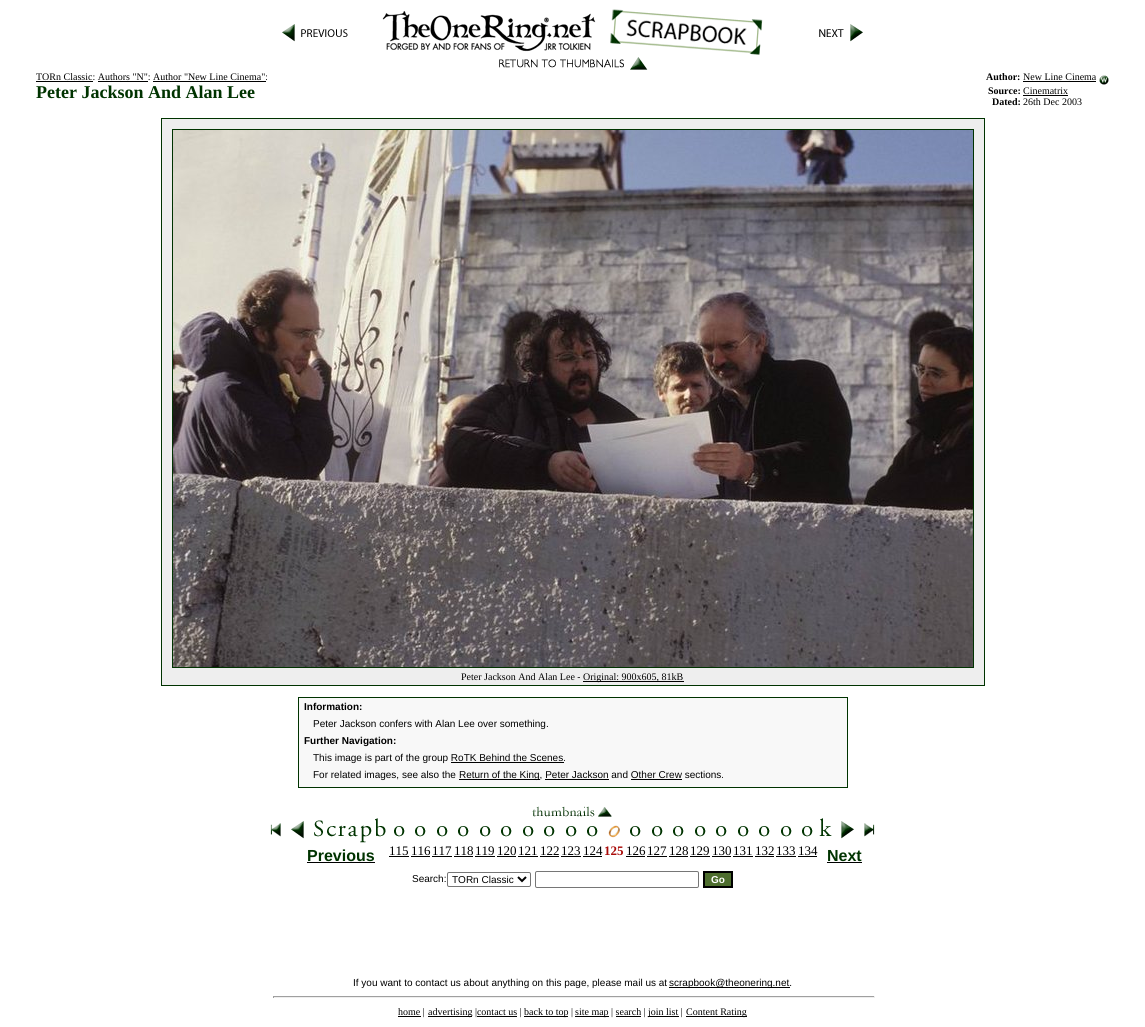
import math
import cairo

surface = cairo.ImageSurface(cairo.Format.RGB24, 1145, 1027)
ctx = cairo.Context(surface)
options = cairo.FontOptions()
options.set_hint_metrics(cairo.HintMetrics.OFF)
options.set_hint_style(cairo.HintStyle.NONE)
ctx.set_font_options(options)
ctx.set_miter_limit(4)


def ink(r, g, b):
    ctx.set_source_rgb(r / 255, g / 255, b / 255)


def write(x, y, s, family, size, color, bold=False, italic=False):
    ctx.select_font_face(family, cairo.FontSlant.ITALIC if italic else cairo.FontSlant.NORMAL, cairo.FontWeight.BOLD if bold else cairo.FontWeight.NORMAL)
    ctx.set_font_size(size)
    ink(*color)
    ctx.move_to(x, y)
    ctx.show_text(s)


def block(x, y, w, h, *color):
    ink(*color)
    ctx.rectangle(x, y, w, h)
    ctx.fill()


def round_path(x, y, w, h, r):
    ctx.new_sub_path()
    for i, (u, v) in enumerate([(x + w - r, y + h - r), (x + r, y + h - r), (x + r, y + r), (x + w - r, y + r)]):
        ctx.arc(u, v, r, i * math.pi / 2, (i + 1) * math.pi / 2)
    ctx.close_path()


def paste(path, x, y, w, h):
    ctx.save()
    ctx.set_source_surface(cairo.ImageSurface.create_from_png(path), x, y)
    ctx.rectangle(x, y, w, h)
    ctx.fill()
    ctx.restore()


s1 = dict(family="Liberation Serif", size=10, color=(0, 0, 0))
s2 = dict(family="Liberation Serif", size=18, color=(0, 51, 0), bold=True)
s3 = dict(family="Liberation Serif", size=10, color=(0, 0, 0), bold=True)
s4 = dict(family="Liberation Sans", size=10, color=(0, 0, 0), bold=True)
s5 = dict(family="Liberation Sans", size=10, color=(0, 0, 0))
s6 = dict(family="Liberation Sans", size=16, color=(0, 51, 0), bold=True)
s7 = dict(family="Liberation Serif", size=13, color=(0, 0, 0))
s8 = dict(family="Liberation Serif", size=13, color=(169, 10, 8), bold=True)
s9 = dict(family="Liberation Sans", size=10, color=(255, 255, 255), bold=True)

ink(255, 255, 255)
ctx.paint()
paste("pic1.png", 282, 24, 66, 18)
paste("pic2.png", 382, 9, 381, 46)
paste("pic3.png", 819, 24, 44, 18)
paste("pic4.png", 499, 57, 149, 13)
write(36, 80, "TORn Classic: Authors \"N\": Author \"New Line Cinema\":", **s1)
block(36, 81, 57, 1, 0, 0, 0)
block(98, 81, 50, 1, 0, 0, 0)
block(153, 81, 113, 1, 0, 0, 0)
write(36, 98, "Peter Jackson And Alan Lee", **s2)
write(986, 80, "Author:", **s3)
write(1023, 80, "New Line Cinema", **s1)
block(1023, 81, 73, 1, 0, 0, 0)
paste("pic5.png", 1099, 75, 10, 10)
write(988, 94, "Source:", **s3)
write(1023, 94, "Cinematrix", **s1)
block(1023, 95, 45, 1, 0, 0, 0)
write(992, 105, "Dated:", **s3)
write(1023, 105, "26th Dec 2003", **s1)
ctx.rectangle(161.5, 118.5, 823, 567)
ink(0, 51, 0)
ctx.set_line_width(1)
ctx.stroke()
block(162, 119, 822, 566, 238, 238, 238)
ctx.rectangle(172.5, 129.5, 801, 538)
ink(0, 51, 0)
ctx.stroke()
paste("pic6.png", 173, 130, 800, 537)
write(461, 680, "Peter Jackson And Alan Lee -", **s1)
block(583, 681, 101, 1, 0, 0, 0)
write(583, 680, "Original: 900x605, 81kB", **s1)
ink(248, 248, 248)
ctx.rectangle(298.5, 697.5, 549, 90)
ctx.fill_preserve()
ink(0, 51, 0)
ctx.stroke()
write(304, 710, "Information:", **s4)
write(313, 727, "Peter Jackson confers with Alan Lee over something.", **s5)
write(304, 744, "Further Navigation:", **s4)
write(313, 761, "This image is part of the group RoTK Behind the Scenes.", **s5)
block(451, 762, 113, 1, 0, 0, 0)
write(313, 778, "For related images, see also the", **s5)
block(459, 779, 81, 1, 0, 0, 0)
write(459, 778, "Return of the King, Peter Jackson and Other Crew sections.", **s5)
block(545, 779, 64, 1, 0, 0, 0)
block(631, 779, 51, 1, 0, 0, 0)
paste("pic7.png", 532, 806, 80, 11)
paste("pic8.png", 270, 823, 11, 14)
paste("pic9.png", 291, 818, 95, 25)
write(307, 861, "Previous", **s6)
block(307, 862, 68, 1, 0, 0, 0)
paste("pic10.png", 394, 826, 11, 11)
write(389, 855, "115", **s7)
block(389, 856, 20, 1, 0, 0, 0)
paste("pic10.png", 415, 826, 11, 11)
write(411, 855, "116", **s7)
block(411, 856, 19, 1, 0, 0, 0)
paste("pic10.png", 437, 826, 11, 11)
write(432, 855, "117", **s7)
block(432, 856, 20, 1, 0, 0, 0)
paste("pic10.png", 458, 826, 11, 11)
write(454, 855, "118", **s7)
block(454, 856, 19, 1, 0, 0, 0)
paste("pic10.png", 480, 826, 11, 11)
write(475, 855, "119", **s7)
block(475, 856, 20, 1, 0, 0, 0)
paste("pic10.png", 501, 826, 11, 11)
write(497, 855, "120", **s7)
block(497, 856, 19, 1, 0, 0, 0)
paste("pic10.png", 523, 826, 11, 11)
write(518, 855, "121", **s7)
block(518, 856, 20, 1, 0, 0, 0)
paste("pic10.png", 544, 826, 11, 11)
write(540, 855, "122", **s7)
block(540, 856, 19, 1, 0, 0, 0)
paste("pic10.png", 566, 826, 11, 11)
write(561, 855, "123", **s7)
block(561, 856, 20, 1, 0, 0, 0)
paste("pic10.png", 587, 826, 11, 11)
write(583, 855, "124", **s7)
block(583, 856, 19, 1, 0, 0, 0)
paste("pic11.png", 608, 825, 12, 13)
write(604, 855, "125", **s8)
paste("pic10.png", 630, 826, 11, 11)
write(626, 855, "126", **s7)
block(626, 856, 19, 1, 0, 0, 0)
paste("pic10.png", 652, 826, 11, 11)
write(647, 855, "127", **s7)
block(647, 856, 20, 1, 0, 0, 0)
paste("pic10.png", 673, 826, 11, 11)
write(669, 855, "128", **s7)
block(669, 856, 19, 1, 0, 0, 0)
paste("pic10.png", 695, 826, 11, 11)
write(690, 855, "129", **s7)
block(690, 856, 20, 1, 0, 0, 0)
paste("pic10.png", 716, 826, 11, 11)
write(712, 855, "130", **s7)
block(712, 856, 19, 1, 0, 0, 0)
paste("pic10.png", 738, 826, 11, 11)
write(733, 855, "131", **s7)
block(733, 856, 20, 1, 0, 0, 0)
paste("pic10.png", 759, 826, 11, 11)
write(755, 855, "132", **s7)
block(755, 856, 19, 1, 0, 0, 0)
paste("pic10.png", 781, 826, 11, 11)
write(776, 855, "133", **s7)
block(776, 856, 20, 1, 0, 0, 0)
paste("pic10.png", 802, 826, 11, 11)
write(798, 855, "134", **s7)
block(798, 856, 19, 1, 0, 0, 0)
paste("pic12.png", 819, 818, 35, 21)
paste("pic13.png", 864, 823, 11, 14)
write(827, 861, "Next", **s6)
block(827, 862, 35, 1, 0, 0, 0)
write(412, 882, "Search:", **s5)
round_path(447.5, 872.5, 83, 14, 1.5)
ink(118, 118, 118)
ctx.stroke()
ctx.new_path()
ctx.move_to(518, 877)
ctx.line_to(522, 881)
ctx.line_to(526, 877)
ink(0, 0, 0)
ctx.set_line_width(2)
ctx.stroke()
write(452, 883, "TORn Classic", **s5)
round_path(535.5, 871.5, 163, 16, 1.5)
ink(118, 118, 118)
ctx.set_line_width(1)
ctx.stroke()
ink(77, 109, 45)
ctx.rectangle(704, 872, 28, 15)
ctx.fill_preserve()
ink(0, 0, 0)
ctx.set_line_width(2)
ctx.stroke()
write(711, 883, "Go", **s9)
write(353, 986, "If you want to contact us about anything on this page, please mail us at", **s5)
block(669, 987, 121, 1, 0, 0, 0)
write(669, 986, "scrapbook@theonering.net.", **s5)
block(273, 996, 602, 1, 159, 159, 159)
block(874, 996, 1, 2, 238, 238, 238)
block(273, 997, 602, 1, 238, 238, 238)
block(273, 996, 1, 2, 159, 159, 159)
block(398, 1016, 23, 1, 0, 0, 0)
write(398, 1015, "home |", **s1)
block(428, 1016, 44, 1, 0, 0, 0)
write(428, 1015, "advertising |contact us |", **s1)
block(477, 1016, 40, 1, 0, 0, 0)
block(524, 1016, 44, 1, 0, 0, 0)
write(524, 1015, "back to top |", **s1)
block(575, 1016, 34, 1, 0, 0, 0)
write(575, 1015, "site map | search |", **s1)
block(616, 1016, 25, 1, 0, 0, 0)
block(648, 1016, 31, 1, 0, 0, 0)
write(648, 1015, "join list |", **s1)
block(686, 1016, 61, 1, 0, 0, 0)
write(686, 1015, "Content Rating", **s1)
surface.write_to_png("screenshot.png")
